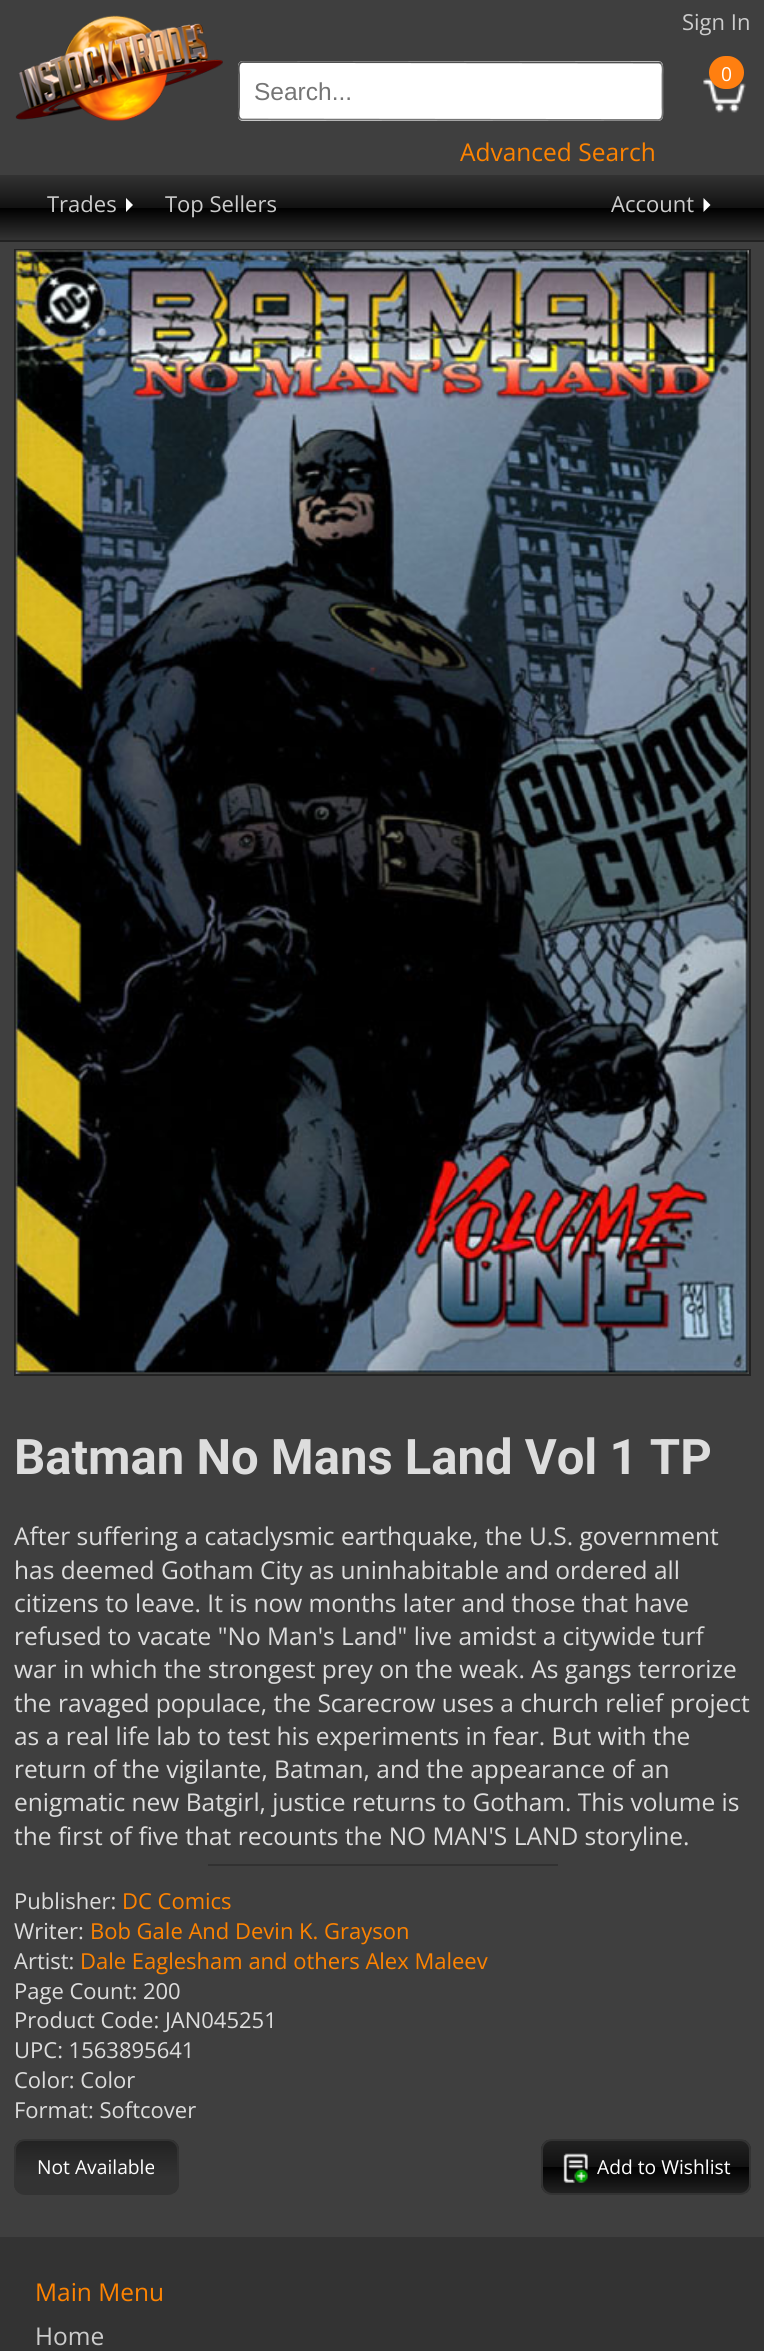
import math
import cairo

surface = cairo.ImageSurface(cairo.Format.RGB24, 764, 2351)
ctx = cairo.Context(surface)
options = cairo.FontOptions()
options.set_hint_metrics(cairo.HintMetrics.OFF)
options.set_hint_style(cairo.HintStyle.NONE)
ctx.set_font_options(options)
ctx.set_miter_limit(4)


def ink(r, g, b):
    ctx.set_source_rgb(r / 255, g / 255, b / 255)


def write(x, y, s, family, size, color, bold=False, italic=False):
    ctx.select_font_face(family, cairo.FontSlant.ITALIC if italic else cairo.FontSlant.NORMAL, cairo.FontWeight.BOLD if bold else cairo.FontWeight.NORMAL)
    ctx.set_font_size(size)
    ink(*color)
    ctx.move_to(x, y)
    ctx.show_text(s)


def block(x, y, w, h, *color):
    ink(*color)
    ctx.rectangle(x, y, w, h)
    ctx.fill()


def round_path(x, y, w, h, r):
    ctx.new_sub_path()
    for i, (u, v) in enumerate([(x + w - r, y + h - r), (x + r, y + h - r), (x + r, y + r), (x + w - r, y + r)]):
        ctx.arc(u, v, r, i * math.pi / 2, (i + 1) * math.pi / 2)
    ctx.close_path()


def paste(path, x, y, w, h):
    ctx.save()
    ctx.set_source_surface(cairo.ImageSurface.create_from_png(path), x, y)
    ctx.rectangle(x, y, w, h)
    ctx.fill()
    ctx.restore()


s1 = dict(family="Open Sans", size=22, color=(204, 204, 204))
s2 = dict(family="Open Sans", size=19.25, color=(255, 255, 255))
s3 = dict(family="Liberation Sans", size=24.5, color=(117, 117, 117))
s4 = dict(family="Open Sans", size=24.5, color=(254, 131, 0))
s5 = dict(family="Roboto", size=49, color=(221, 221, 221), bold=True)
s6 = dict(family="Open Sans", size=24.5, color=(221, 221, 221))
s7 = dict(family="Open Sans", size=22, color=(221, 221, 221))
s8 = dict(family="Open Sans", size=22, color=(254, 131, 0))
s9 = dict(family="Open Sans", size=24.5, color=(204, 204, 204))

ink(63, 63, 63)
ctx.paint()
paste("pic1.png", 15, 15, 208, 106)
write(682, 30, "Sign In", **s1)
paste("pic2.png", 703, 78, 43, 35)
ink(255, 127, 16)
round_path(709, 56, 35, 33, 16.5)
ctx.fill()
write(721, 81, "0", **s2)
round_path(238, 61, 425, 60, 5)
ctx.fill()
ctx.new_path()
ctx.move_to(661, 63.5)
ctx.curve_to(663.5, 66, 662.5, 72.5, 662.5, 74.5)
ctx.line_to(662.5, 107.5)
ctx.curve_to(662.5, 110.5, 664, 120, 658, 120)
ctx.line_to(242, 119.5)
ctx.line_to(240, 118.5)
ink(118, 118, 118)
ctx.set_line_width(1.8)
ctx.stroke()
ctx.new_path()
ctx.move_to(240, 118.5)
ctx.curve_to(237.5, 116, 239, 109.5, 239, 107.5)
ctx.line_to(239, 74.5)
ctx.curve_to(239, 71.5, 237, 62, 243, 62)
ctx.line_to(659.5, 62.5)
ctx.line_to(661, 63.5)
ink(79, 79, 79)
ctx.stroke()
write(254, 100, "Search...", **s3)
write(460, 161, "Advanced Search", **s4)
gradient = cairo.LinearGradient(382, 175, 382, 240)
gradient.add_color_stop_rgba(0, 0.2, 0.2, 0.2, 1)
gradient.add_color_stop_rgba(0.5, 0.067, 0.067, 0.067, 1)
gradient.add_color_stop_rgba(0.51, 0, 0, 0, 1)
gradient.add_color_stop_rgba(1, 0.2, 0.2, 0.2, 1)
ctx.set_source(gradient)
ctx.rectangle(0, 175, 764, 65)
ctx.fill()
block(0, 240, 764, 2, 34, 34, 34)
write(47, 212, "Trades", **s1)
ink(255, 255, 255)
ctx.new_path()
ctx.move_to(126, 212)
ctx.line_to(126, 198)
ctx.line_to(133, 205)
ctx.close_path()
ctx.fill()
write(165, 212, "Top Sellers", **s1)
write(611, 212, "Account", **s1)
ink(255, 255, 255)
ctx.new_path()
ctx.move_to(703.5, 212)
ctx.line_to(703.5, 198)
ctx.line_to(710.5, 205)
ctx.close_path()
ctx.fill()
ctx.rectangle(15, 250, 735, 1125)
ink(34, 34, 34)
ctx.set_line_width(2)
ctx.stroke()
paste("pic3.png", 15, 250, 734, 1124)
write(14, 1474, "Batman No Mans Land Vol 1 TP", **s5)
write(14, 1545, "After suffering a cataclysmic earthquake, the U.S. government", **s6)
write(14, 1579, "has deemed Gotham City as uninhabitable and ordered all", **s6)
write(14, 1612, "citizens to leave. It is now months later and those that have", **s6)
write(14, 1645, "refused to vacate \"No Man's Land\" live amidst a citywide turf", **s6)
write(14, 1678, "war in which the strongest prey on the weak. As gangs terrorize", **s6)
write(14, 1712, "the ravaged populace, the Scarecrow uses a church relief project", **s6)
write(14, 1745, "as a real life lab to test his experiments in fear. But with the", **s6)
write(14, 1778, "return of the vigilante, Batman, and the appearance of an", **s6)
write(14, 1811, "enigmatic new Batgirl, justice returns to Gotham. This volume is", **s6)
write(14, 1845, "the first of five that recounts the NO MAN'S LAND storyline.", **s6)
block(208, 1864, 350, 2, 49, 49, 49)
write(14, 1909, "Publisher:", **s7)
write(122, 1909, "DC Comics", **s8)
write(14, 1939, "Writer:", **s7)
write(90, 1939, "Bob Gale And Devin K. Grayson", **s8)
write(14, 1969, "Artist:", **s7)
write(80, 1969, "Dale Eaglesham and others Alex Maleev", **s8)
write(14, 1999, "Page Count: 200", **s7)
write(14, 2028, "Product Code: JAN045251", **s7)
write(14, 2058, "UPC: 1563895641", **s7)
write(14, 2088, "Color: Color", **s7)
write(14, 2118, "Format: Softcover", **s7)
ctx.save()
round_path(14, 2139, 165, 56, 11)
ctx.clip()
gradient = cairo.LinearGradient(96, 2140, 96, 2193)
gradient.add_color_stop_rgba(0, 0.133, 0.133, 0.133, 1)
gradient.add_color_stop_rgba(0.7, 0.2, 0.2, 0.2, 1)
ctx.set_source(gradient)
ctx.rectangle(14, 2140, 165, 53)
ctx.fill()
ctx.restore()
round_path(15, 2140, 163, 54, 10)
ink(51, 51, 51)
ctx.stroke()
write(37, 2174, "Not Available", **s2)
ctx.save()
round_path(541, 2139, 210, 56, 11)
ctx.clip()
gradient = cairo.LinearGradient(646, 2140, 646, 2193)
gradient.add_color_stop_rgba(0, 0.133, 0.133, 0.133, 1)
gradient.add_color_stop_rgba(0.5, 0.067, 0.067, 0.067, 1)
gradient.add_color_stop_rgba(0.51, 0, 0, 0, 1)
gradient.add_color_stop_rgba(1, 0.133, 0.133, 0.133, 1)
ctx.set_source(gradient)
ctx.rectangle(541, 2140, 210, 53)
ctx.fill()
ctx.restore()
round_path(542, 2140, 208, 54, 10)
ink(51, 51, 51)
ctx.stroke()
paste("pic4.png", 563, 2153, 25, 30)
write(597, 2174, "Add to Wishlist", **s2)
block(0, 2237, 764, 114, 51, 51, 51)
write(35, 2301, "Main Menu", **s4)
write(35, 2345, "Home", **s9)
surface.write_to_png("screenshot.png")
